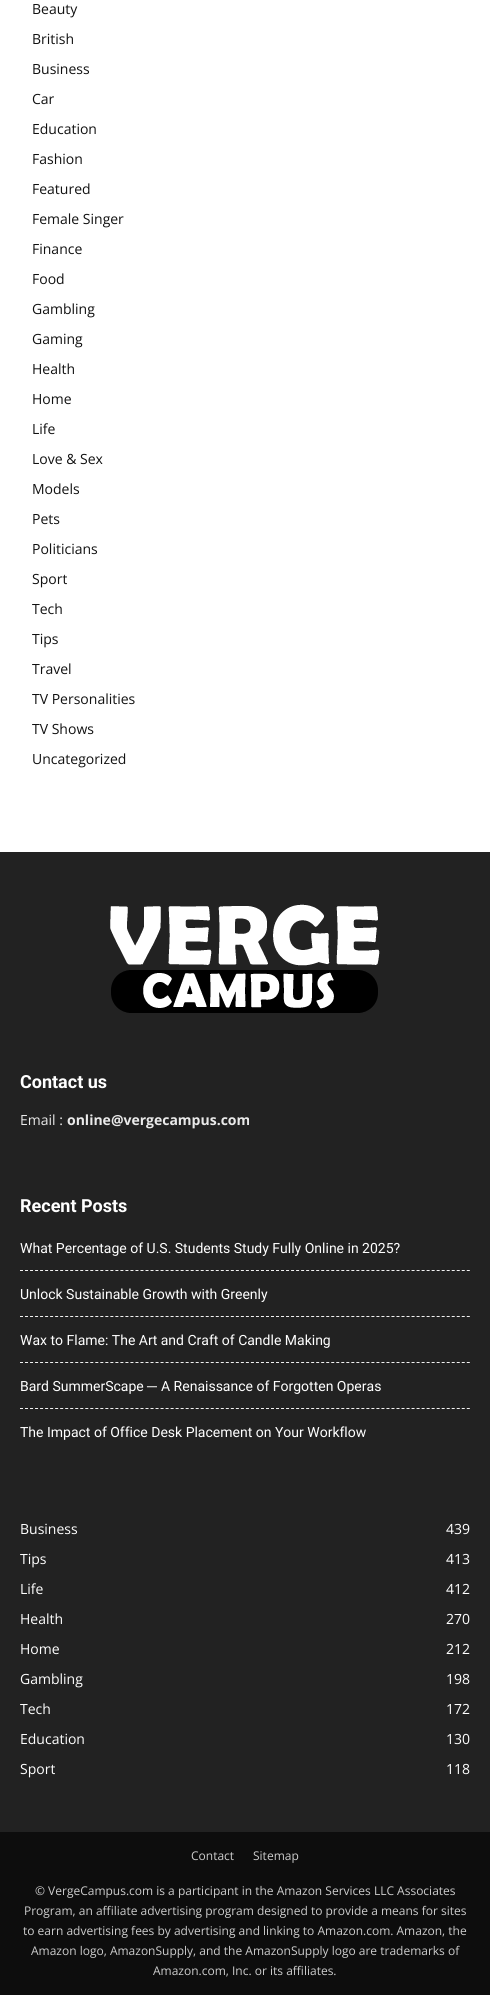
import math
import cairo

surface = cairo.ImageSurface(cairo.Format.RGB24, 490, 1995)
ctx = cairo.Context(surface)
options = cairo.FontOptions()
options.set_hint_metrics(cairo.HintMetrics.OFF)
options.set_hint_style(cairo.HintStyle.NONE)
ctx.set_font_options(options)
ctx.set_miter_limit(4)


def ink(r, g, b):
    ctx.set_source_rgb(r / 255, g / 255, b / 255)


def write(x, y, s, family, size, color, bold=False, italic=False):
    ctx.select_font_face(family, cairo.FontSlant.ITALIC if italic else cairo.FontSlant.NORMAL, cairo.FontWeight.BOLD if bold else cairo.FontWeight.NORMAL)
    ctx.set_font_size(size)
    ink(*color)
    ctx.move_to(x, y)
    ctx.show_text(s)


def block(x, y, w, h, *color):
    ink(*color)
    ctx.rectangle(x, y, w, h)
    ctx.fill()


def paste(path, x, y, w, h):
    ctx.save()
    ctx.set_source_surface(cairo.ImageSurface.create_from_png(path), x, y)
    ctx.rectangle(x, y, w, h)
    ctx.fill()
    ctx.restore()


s1 = dict(family="Open Sans", size=14, color=(17, 17, 17))
s2 = dict(family="Roboto", size=18, color=(255, 255, 255), bold=True)
s3 = dict(family="Open Sans", size=14, color=(234, 234, 234))
s4 = dict(family="Open Sans", size=14, color=(234, 234, 234), bold=True)
s5 = dict(family="Roboto", size=14, color=(255, 255, 255))
s6 = dict(family="Liberation Sans", size=14, color=(255, 255, 255))
s7 = dict(family="Open Sans", size=14, color=(255, 255, 255))
s8 = dict(family="Open Sans", size=12, color=(204, 204, 204))

ink(255, 255, 255)
ctx.paint()
write(32, 14, "Beauty", **s1)
write(32, 44, "British", **s1)
write(32, 74, "Business", **s1)
write(32, 104, "Car", **s1)
write(32, 134, "Education", **s1)
write(32, 164, "Fashion", **s1)
write(32, 194, "Featured", **s1)
write(32, 224, "Female Singer", **s1)
write(32, 254, "Finance", **s1)
write(32, 284, "Food", **s1)
write(32, 314, "Gambling", **s1)
write(32, 344, "Gaming", **s1)
write(32, 374, "Health", **s1)
write(32, 404, "Home", **s1)
write(32, 434, "Life", **s1)
write(32, 464, "Love & Sex", **s1)
write(32, 494, "Models", **s1)
write(32, 524, "Pets", **s1)
write(32, 554, "Politicians", **s1)
write(32, 584, "Sport", **s1)
write(32, 614, "Tech", **s1)
write(32, 644, "Tips", **s1)
write(32, 674, "Travel", **s1)
write(32, 704, "TV Personalities", **s1)
write(32, 734, "TV Shows", **s1)
write(32, 764, "Uncategorized", **s1)
block(0, 852, 490, 980, 34, 34, 34)
paste("pic1.png", 110, 904, 270, 109)
write(20, 1088, "Contact us", **s2)
write(20, 1125, "Email :", **s3)
write(67, 1125, "online@vergecampus.com", **s4)
write(20, 1212, "Recent Posts", **s2)
ctx.new_path()
ctx.move_to(20, 1270.5)
ctx.line_to(470, 1270.5)
ink(241, 241, 241)
ctx.set_line_width(1)
ctx.set_dash([3, 2.02])
ctx.stroke()
write(20, 1253, "What Percentage of U.S. Students Study Fully Online in 2025?", **s5)
ctx.new_path()
ctx.move_to(20, 1316.5)
ctx.line_to(470, 1316.5)
ink(241, 241, 241)
ctx.stroke()
write(20, 1299, "Unlock Sustainable Growth with Greenly", **s5)
ctx.new_path()
ctx.move_to(20, 1362.5)
ctx.line_to(470, 1362.5)
ink(241, 241, 241)
ctx.stroke()
write(20, 1345, "Wax to Flame: The Art and Craft of Candle Making", **s5)
ctx.new_path()
ctx.move_to(20, 1408.5)
ctx.line_to(470, 1408.5)
ink(241, 241, 241)
ctx.stroke()
write(20, 1391, "Bard SummerScape", **s5)
write(147, 1391, "─", **s6)
write(161, 1391, "A Renaissance of Forgotten Operas", **s5)
write(20, 1437, "The Impact of Office Desk Placement on Your Workflow", **s5)
write(20, 1534, "Business", **s7)
write(446, 1534, "439", **s7)
write(20, 1564, "Tips", **s7)
write(446, 1564, "413", **s7)
write(20, 1594, "Life", **s7)
write(446, 1594, "412", **s7)
write(20, 1624, "Health", **s7)
write(446, 1624, "270", **s7)
write(20, 1654, "Home", **s7)
write(446, 1654, "212", **s7)
write(20, 1684, "Gambling", **s7)
write(446, 1684, "198", **s7)
write(20, 1714, "Tech", **s7)
write(446, 1714, "172", **s7)
write(20, 1744, "Education", **s7)
write(446, 1744, "130", **s7)
write(20, 1774, "Sport", **s7)
write(446, 1774, "118", **s7)
block(0, 1832, 490, 163, 13, 13, 13)
write(191, 1860, "Contact", **s8)
write(253, 1860, "Sitemap", **s8)
write(35, 1895, "© VergeCampus.com is a participant in the Amazon Services LLC Associates", **s8)
write(24, 1915, "Program, an affiliate advertising program designed to provide a means for sites", **s8)
write(23, 1935, "to earn advertising fees by advertising and linking to Amazon.com. Amazon, the", **s8)
write(31, 1955, "Amazon logo, AmazonSupply, and the AmazonSupply logo are trademarks of", **s8)
write(153, 1975, "Amazon.com, Inc. or its affiliates.", **s8)
surface.write_to_png("screenshot.png")
